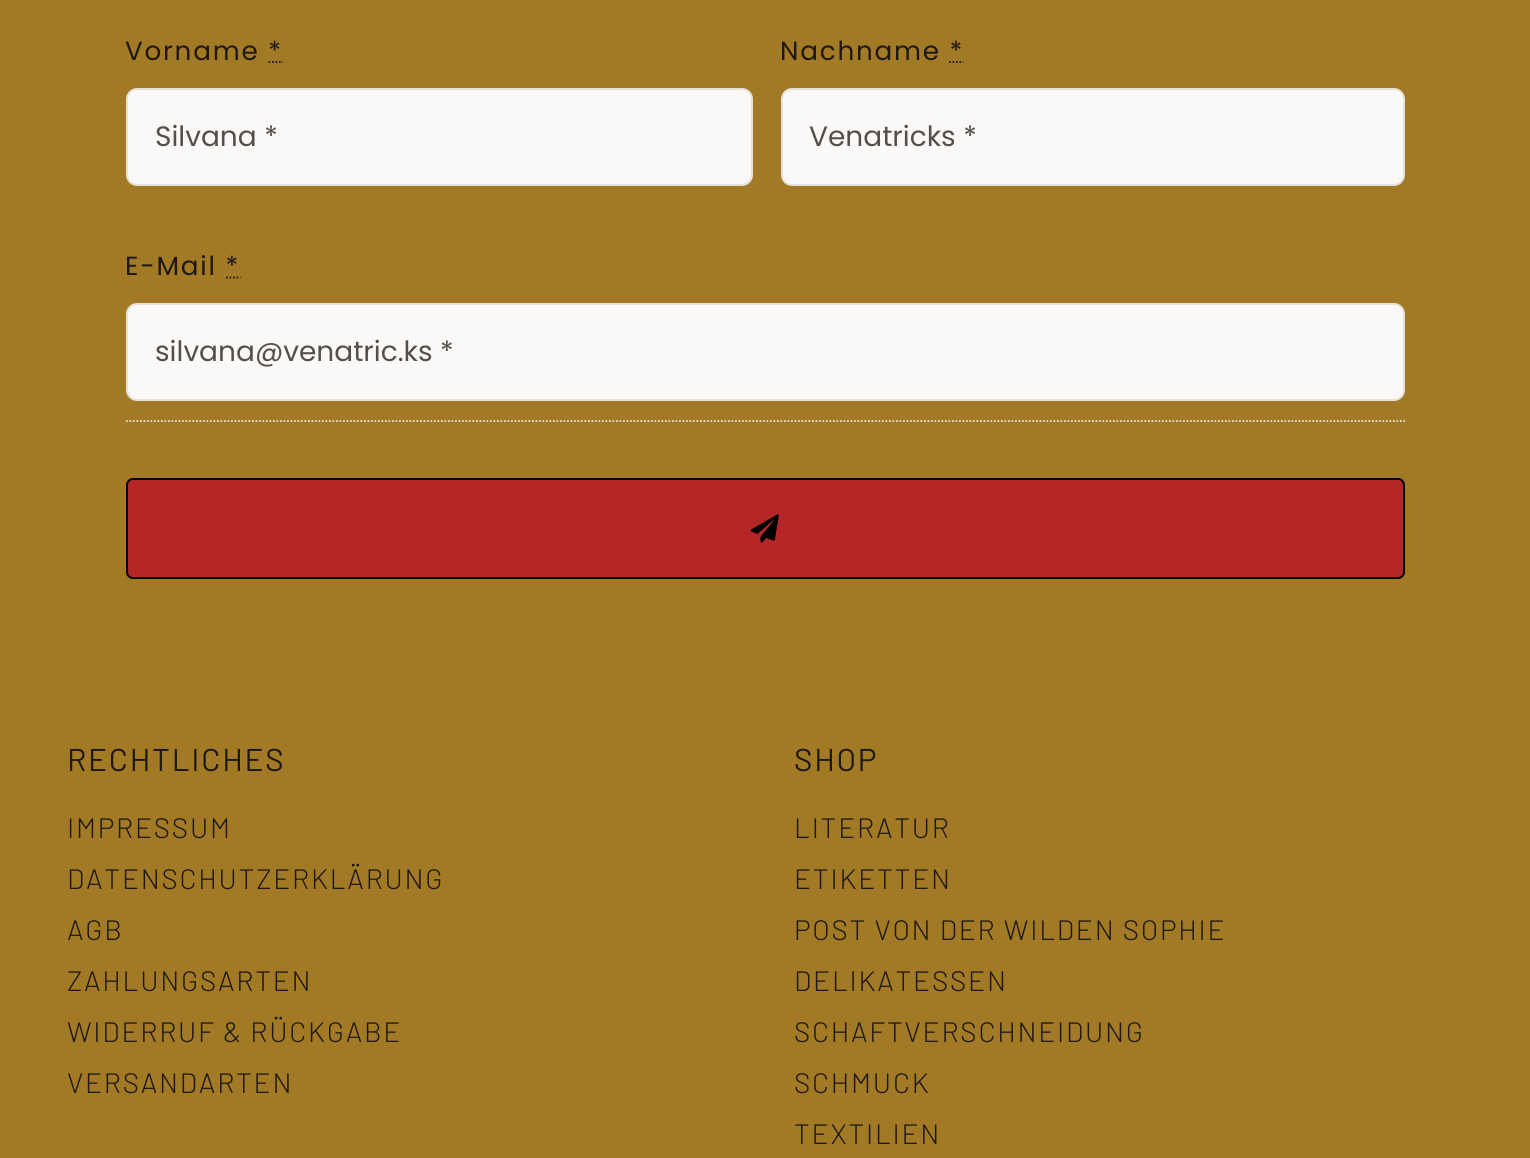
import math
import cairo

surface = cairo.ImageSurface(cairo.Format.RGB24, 1530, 1158)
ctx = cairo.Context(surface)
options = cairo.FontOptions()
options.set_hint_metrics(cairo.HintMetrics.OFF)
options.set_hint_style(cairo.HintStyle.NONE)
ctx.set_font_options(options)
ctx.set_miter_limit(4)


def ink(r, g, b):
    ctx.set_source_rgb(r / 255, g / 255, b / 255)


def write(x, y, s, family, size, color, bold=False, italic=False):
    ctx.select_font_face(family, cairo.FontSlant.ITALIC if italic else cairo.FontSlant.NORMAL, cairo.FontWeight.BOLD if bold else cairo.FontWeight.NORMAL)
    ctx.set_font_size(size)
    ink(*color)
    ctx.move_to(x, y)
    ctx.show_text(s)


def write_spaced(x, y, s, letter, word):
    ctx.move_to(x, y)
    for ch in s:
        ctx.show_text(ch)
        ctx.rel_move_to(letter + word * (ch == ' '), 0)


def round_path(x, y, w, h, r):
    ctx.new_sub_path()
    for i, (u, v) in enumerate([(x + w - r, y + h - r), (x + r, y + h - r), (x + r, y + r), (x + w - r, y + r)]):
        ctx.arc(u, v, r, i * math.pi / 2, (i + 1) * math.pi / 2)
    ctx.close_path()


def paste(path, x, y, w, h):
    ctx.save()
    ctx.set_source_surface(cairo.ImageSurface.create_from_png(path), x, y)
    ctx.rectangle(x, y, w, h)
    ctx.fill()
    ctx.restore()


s1 = dict(family="Poppins", size=28, color=(84, 78, 76))

ink(162, 121, 36)
ctx.paint()
ctx.select_font_face("Poppins")
ctx.set_font_size(26.25)
ink(29, 24, 22)
write_spaced(125, 60, "Vorname *", 1.75, 0)
ctx.new_path()
ctx.move_to(268.5, 62)
ctx.line_to(283, 62)
ctx.set_line_width(1.8)
ctx.set_dash([1.75, 1.75])
ctx.stroke()
ink(250, 249, 247)
round_path(127, 89, 625, 96, 10)
ctx.fill_preserve()
ink(231, 226, 217)
ctx.set_line_width(2)
ctx.set_dash([])
ctx.stroke()
write(155, 146, "Silvana *", **s1)
ctx.set_font_size(26.25)
ink(29, 24, 22)
write_spaced(780, 60, "Nachname *", 1.75, 0)
ctx.new_path()
ctx.move_to(949, 62)
ctx.line_to(963.5, 62)
ctx.set_line_width(1.8)
ctx.set_dash([1.75, 1.75])
ctx.stroke()
ink(250, 249, 247)
round_path(782, 89, 622, 96, 10)
ctx.fill_preserve()
ink(231, 226, 217)
ctx.set_line_width(2)
ctx.set_dash([])
ctx.stroke()
write(809, 146, "Venatricks *", **s1)
ctx.set_font_size(26.25)
ink(29, 24, 22)
write_spaced(125, 275, "E-Mail *", 1.75, 0)
ctx.new_path()
ctx.move_to(226, 277.5)
ctx.line_to(240.5, 277.5)
ctx.set_line_width(1.8)
ctx.set_dash([1.75, 1.75])
ctx.stroke()
ink(250, 249, 247)
round_path(127, 304, 1277, 96, 10)
ctx.fill_preserve()
ink(231, 226, 217)
ctx.set_line_width(2)
ctx.set_dash([])
ctx.stroke()
write(155, 361, "silvana@venatric.ks *", **s1)
ctx.new_path()
ctx.move_to(126, 421)
ctx.line_to(1405, 421)
ink(231, 226, 217)
ctx.set_line_width(1.8)
ctx.set_dash([1.75, 1.75])
ctx.stroke()
ink(181, 38, 38)
round_path(127, 479, 1277, 99, 6)
ctx.fill_preserve()
ink(0, 0, 0)
ctx.set_line_width(2)
ctx.set_dash([])
ctx.stroke()
paste("pic1.png", 750, 514, 29, 29)
ctx.select_font_face("Barlow")
ctx.set_font_size(31.5)
ink(29, 24, 22)
write_spaced(67, 771, "RECHTLICHES", 1.75, 0)
ctx.select_font_face("Barlow Light")
ctx.set_font_size(28)
write_spaced(67, 838, "IMPRESSUM", 1.75, 0)
write_spaced(67, 889, "DATENSCHUTZERKLÄRUNG", 1.75, 0)
write_spaced(67, 940, "AGB", 1.75, 0)
write_spaced(67, 991, "ZAHLUNGSARTEN", 1.75, 0)
write_spaced(67, 1042, "WIDERRUF & RÜCKGABE", 1.75, 0)
write_spaced(67, 1093, "VERSANDARTEN", 1.75, 0)
ctx.select_font_face("Barlow")
ctx.set_font_size(31.5)
write_spaced(794, 771, "SHOP", 1.75, 0)
ctx.select_font_face("Barlow Light")
ctx.set_font_size(28)
write_spaced(794, 838, "LITERATUR", 1.75, 0)
write_spaced(794, 889, "ETIKETTEN", 1.75, 0)
write_spaced(794, 940, "POST VON DER WILDEN SOPHIE", 1.75, 0)
write_spaced(794, 991, "DELIKATESSEN", 1.75, 0)
write_spaced(794, 1042, "SCHAFTVERSCHNEIDUNG", 1.75, 0)
write_spaced(794, 1093, "SCHMUCK", 1.75, 0)
write_spaced(794, 1144, "TEXTILIEN", 1.75, 0)
surface.write_to_png("screenshot.png")
